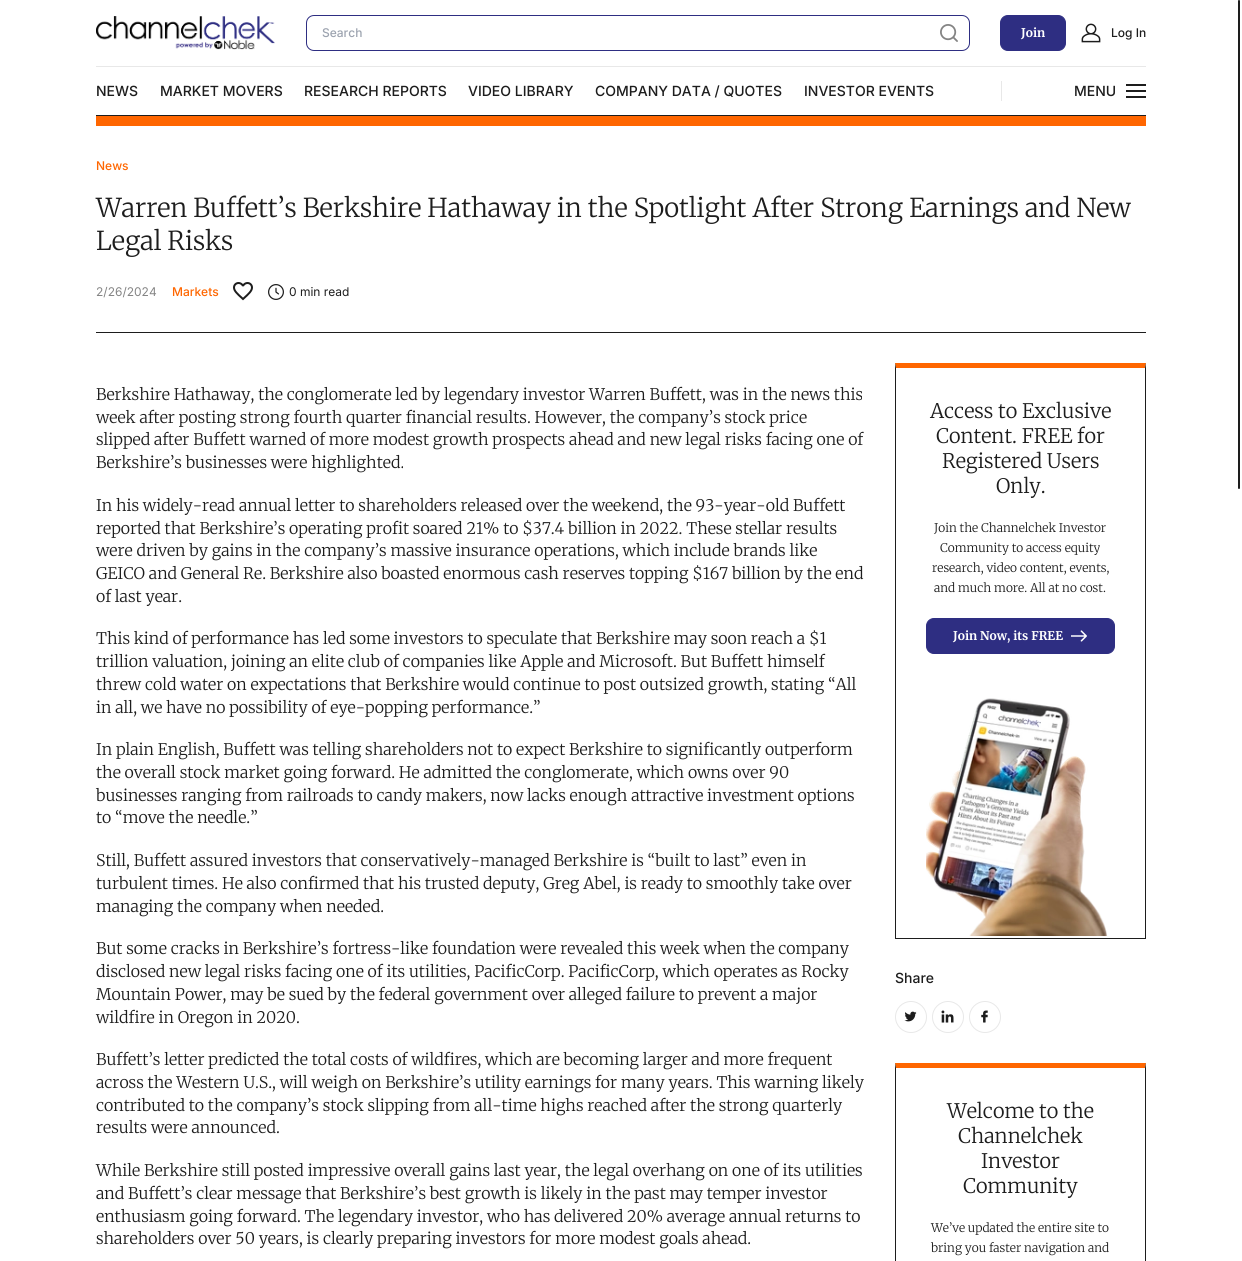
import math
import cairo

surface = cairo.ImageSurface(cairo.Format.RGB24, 1242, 1261)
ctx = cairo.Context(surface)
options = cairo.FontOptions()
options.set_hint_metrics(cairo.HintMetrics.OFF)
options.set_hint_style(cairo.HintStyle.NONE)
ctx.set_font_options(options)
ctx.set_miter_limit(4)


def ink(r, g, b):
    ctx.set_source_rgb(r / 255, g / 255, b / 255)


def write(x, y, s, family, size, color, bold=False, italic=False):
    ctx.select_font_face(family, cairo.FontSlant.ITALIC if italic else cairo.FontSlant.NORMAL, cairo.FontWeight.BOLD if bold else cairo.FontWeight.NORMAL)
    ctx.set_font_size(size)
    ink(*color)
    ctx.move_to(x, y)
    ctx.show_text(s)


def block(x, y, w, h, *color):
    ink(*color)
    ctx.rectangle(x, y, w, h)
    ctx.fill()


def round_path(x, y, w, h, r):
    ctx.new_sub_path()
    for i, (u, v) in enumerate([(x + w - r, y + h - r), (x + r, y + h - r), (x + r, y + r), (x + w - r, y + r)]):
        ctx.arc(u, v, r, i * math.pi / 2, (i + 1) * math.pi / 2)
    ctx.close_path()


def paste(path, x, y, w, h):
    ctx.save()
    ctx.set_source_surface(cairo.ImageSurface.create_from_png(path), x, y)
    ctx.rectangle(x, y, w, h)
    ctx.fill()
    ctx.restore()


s1 = dict(family="Inter Medium", size=12, color=(156, 163, 175))
s2 = dict(family="Merriweather", size=12, color=(255, 255, 255), bold=True)
s3 = dict(family="Inter Medium", size=12, color=(29, 29, 29))
s4 = dict(family="Inter Medium", size=14, color=(29, 29, 29))
s5 = dict(family="Inter Medium", size=12, color=(255, 102, 0))
s6 = dict(family="Merriweather Light", size=26, color=(29, 29, 29))
s7 = dict(family="Inter", size=12, color=(132, 132, 132))
s8 = dict(family="Inter", size=12, color=(29, 29, 29))
s9 = dict(family="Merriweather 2 Light", size=16, color=(29, 29, 29))
s10 = dict(family="Merriweather 2 Light", size=20, color=(29, 29, 29))
s11 = dict(family="Merriweather 2 Light", size=12, color=(29, 29, 29))

ink(255, 255, 255)
ctx.paint()
paste("pic1.png", 96, 16, 179, 34)
round_path(306.5, 15.5, 663, 35, 7.5)
ink(46, 46, 130)
ctx.set_line_width(1)
ctx.stroke()
write(322, 37, "Search", **s1)
paste("pic2.png", 940, 24, 18, 18)
ink(46, 46, 130)
round_path(1000.5, 15.5, 65, 35, 7.5)
ctx.fill_preserve()
ctx.stroke()
write(1021, 37, "Join", **s2)
paste("pic3.png", 1081, 23, 20, 20)
write(1111, 37, "Log In", **s3)
block(96, 66, 1050, 1, 232, 232, 232)
block(96, 115, 1050, 1, 29, 29, 29)
write(96, 96, "NEWS", **s4)
write(160, 96, "MARKET MOVERS", **s4)
write(304, 96, "RESEARCH REPORTS", **s4)
write(468, 96, "VIDEO LIBRARY", **s4)
write(595, 96, "COMPANY DATA / QUOTES", **s4)
write(804, 96, "INVESTOR EVENTS", **s4)
block(1001, 81, 1, 20, 232, 232, 232)
write(1074, 96, "MENU", **s4)
block(1126, 84, 20, 2, 29, 29, 29)
block(1126, 90, 20, 2, 29, 29, 29)
block(1126, 96, 20, 2, 29, 29, 29)
round_path(1238, 0, 2, 489, 1)
ctx.fill()
block(96, 332, 1050, 1, 29, 29, 29)
block(96, 116, 1050, 10, 255, 102, 0)
write(96, 170, "News", **s5)
write(96, 217, "Warren Buffett’s Berkshire Hathaway in the Spotlight After Strong Earnings and New", **s6)
write(96, 250, "Legal Risks", **s6)
write(96, 296, "2/26/2024", **s7)
write(172, 296, "Markets", **s5)
paste("pic4.png", 233, 282, 20, 19)
paste("pic5.png", 268, 284, 16, 16)
write(289, 296, "0 min read", **s8)
write(96, 400, "Berkshire Hathaway, the conglomerate led by legendary investor Warren Buffett, was in the news this", **s9)
write(96, 423, "week after posting strong fourth quarter financial results. However, the company’s stock price", **s9)
write(96, 445, "slipped after Buffett warned of more modest growth prospects ahead and new legal risks facing one of", **s9)
write(96, 468, "Berkshire’s businesses were highlighted.", **s9)
write(96, 511, "In his widely-read annual letter to shareholders released over the weekend, the 93-year-old Buffett", **s9)
write(96, 534, "reported that Berkshire’s operating profit soared 21% to $37.4 billion in 2022. These stellar results", **s9)
write(96, 556, "were driven by gains in the company’s massive insurance operations, which include brands like", **s9)
write(96, 579, "GEICO and General Re. Berkshire also boasted enormous cash reserves topping $167 billion by the end", **s9)
write(96, 602, "of last year.", **s9)
write(96, 644, "This kind of performance has led some investors to speculate that Berkshire may soon reach a $1", **s9)
write(96, 667, "trillion valuation, joining an elite club of companies like Apple and Microsoft. But Buffett himself", **s9)
write(96, 690, "threw cold water on expectations that Berkshire would continue to post outsized growth, stating “All", **s9)
write(96, 713, "in all, we have no possibility of eye-popping performance.”", **s9)
write(96, 755, "In plain English, Buffett was telling shareholders not to expect Berkshire to significantly outperform", **s9)
write(96, 778, "the overall stock market going forward. He admitted the conglomerate, which owns over 90", **s9)
write(96, 801, "businesses ranging from railroads to candy makers, now lacks enough attractive investment options", **s9)
write(96, 823, "to “move the needle.”", **s9)
write(96, 866, "Still, Buffett assured investors that conservatively-managed Berkshire is “built to last” even in", **s9)
write(96, 889, "turbulent times. He also confirmed that his trusted deputy, Greg Abel, is ready to smoothly take over", **s9)
write(96, 912, "managing the company when needed.", **s9)
write(96, 954, "But some cracks in Berkshire’s fortress-like foundation were revealed this week when the company", **s9)
write(96, 977, "disclosed new legal risks facing one of its utilities, PacificCorp. PacificCorp, which operates as Rocky", **s9)
write(96, 1000, "Mountain Power, may be sued by the federal government over alleged failure to prevent a major", **s9)
write(96, 1023, "wildfire in Oregon in 2020.", **s9)
write(96, 1065, "Buffett’s letter predicted the total costs of wildfires, which are becoming larger and more frequent", **s9)
write(96, 1088, "across the Western U.S., will weigh on Berkshire’s utility earnings for many years. This warning likely", **s9)
write(96, 1111, "contributed to the company’s stock slipping from all-time highs reached after the strong quarterly", **s9)
write(96, 1133, "results were announced.", **s9)
write(96, 1176, "While Berkshire still posted impressive overall gains last year, the legal overhang on one of its utilities", **s9)
write(96, 1199, "and Buffett’s clear message that Berkshire’s best growth is likely in the past may temper investor", **s9)
write(96, 1222, "enthusiasm going forward. The legendary investor, who has delivered 20% average annual returns to", **s9)
write(96, 1244, "shareholders over 50 years, is clearly preparing investors for more modest goals ahead.", **s9)
ink(255, 102, 0)
ctx.new_path()
ctx.move_to(895, 363)
ctx.line_to(1146, 363)
ctx.line_to(1145, 368)
ctx.line_to(896, 368)
ctx.close_path()
ctx.fill()
ink(29, 29, 29)
ctx.new_path()
ctx.move_to(1146, 363)
ctx.line_to(1146, 939)
ctx.line_to(1145, 938)
ctx.line_to(1145, 368)
ctx.close_path()
ctx.fill()
block(895, 938, 251, 1, 29, 29, 29)
ctx.new_path()
ctx.move_to(895, 939)
ctx.line_to(895, 363)
ctx.line_to(896, 368)
ctx.line_to(896, 938)
ctx.close_path()
ctx.fill()
write(930, 418, "Access to Exclusive", **s10)
write(936, 443, "Content. FREE for", **s10)
write(942, 468, "Registered Users", **s10)
write(996, 493, "Only.", **s10)
write(934, 532, "Join the Channelchek Investor", **s11)
write(940, 552, "Community to access equity", **s11)
write(932, 572, "research, video content, events,", **s11)
write(934, 592, "and much more. All at no cost.", **s11)
ink(46, 46, 130)
round_path(926.5, 618.5, 188, 35, 7.5)
ctx.fill_preserve()
ctx.stroke()
write(953, 640, "Join Now, its FREE", **s2)
paste("pic6.png", 1071, 630, 16, 12)
paste("pic7.png", 926, 698, 182, 238)
write(895, 983, "Share", **s4)
ctx.new_path()
ctx.arc(911, 1017, 15.5, 0, 2 * math.pi)
ink(232, 232, 232)
ctx.stroke()
paste("pic8.png", 904, 1011, 13, 11)
ctx.arc(948, 1017, 15.5, 0, 2 * math.pi)
ctx.stroke()
paste("pic9.png", 941, 1010, 13, 13)
ctx.arc(985, 1017, 15.5, 0, 2 * math.pi)
ctx.stroke()
paste("pic10.png", 981, 1010, 7, 13)
ink(255, 102, 0)
ctx.new_path()
ctx.move_to(895, 1063)
ctx.line_to(1146, 1063)
ctx.line_to(1145, 1068)
ctx.line_to(896, 1068)
ctx.close_path()
ctx.fill()
ink(29, 29, 29)
ctx.new_path()
ctx.move_to(1146, 1063)
ctx.line_to(1146, 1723)
ctx.line_to(1145, 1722)
ctx.line_to(1145, 1068)
ctx.close_path()
ctx.fill()
ctx.new_path()
ctx.move_to(895, 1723)
ctx.line_to(895, 1063)
ctx.line_to(896, 1068)
ctx.line_to(896, 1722)
ctx.close_path()
ctx.fill()
write(947, 1118, "Welcome to the", **s10)
write(958, 1143, "Channelchek", **s10)
write(981, 1168, "Investor", **s10)
write(963, 1193, "Community", **s10)
write(931, 1232, "We’ve updated the entire site to", **s11)
write(931, 1252, "bring you faster navigation and", **s11)
surface.write_to_png("screenshot.png")
